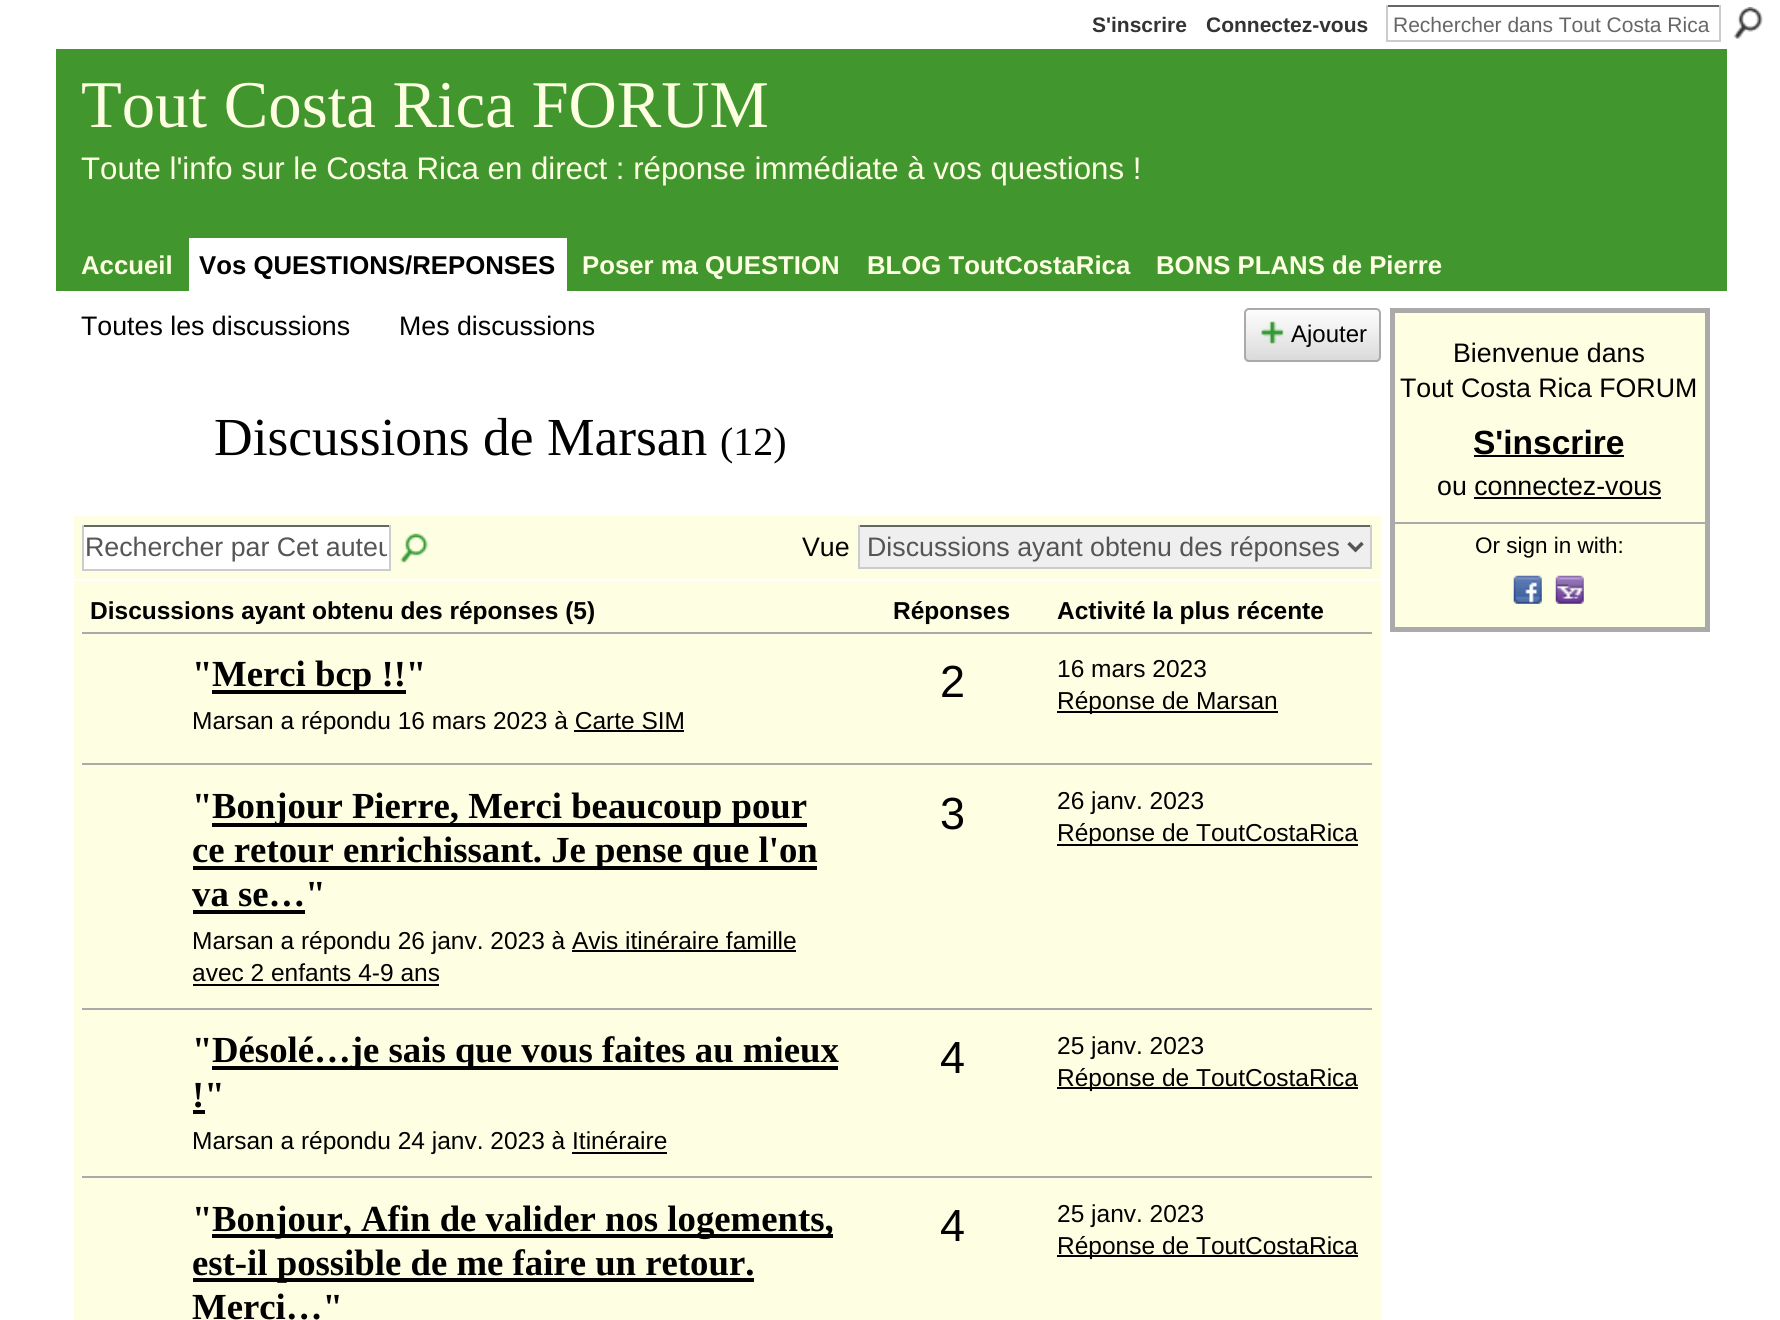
import math
import cairo

surface = cairo.ImageSurface(cairo.Format.RGB24, 1780, 1320)
ctx = cairo.Context(surface)
options = cairo.FontOptions()
options.set_hint_metrics(cairo.HintMetrics.OFF)
options.set_hint_style(cairo.HintStyle.NONE)
ctx.set_font_options(options)
ctx.set_miter_limit(4)


def ink(r, g, b):
    ctx.set_source_rgb(r / 255, g / 255, b / 255)


def write(x, y, s, family, size, color, bold=False, italic=False):
    ctx.select_font_face(family, cairo.FontSlant.ITALIC if italic else cairo.FontSlant.NORMAL, cairo.FontWeight.BOLD if bold else cairo.FontWeight.NORMAL)
    ctx.set_font_size(size)
    ink(*color)
    ctx.move_to(x, y)
    ctx.show_text(s)


def write_spaced(x, y, s, letter, word):
    ctx.move_to(x, y)
    for ch in s:
        ctx.show_text(ch)
        ctx.rel_move_to(letter + word * (ch == ' '), 0)


def block(x, y, w, h, *color):
    ink(*color)
    ctx.rectangle(x, y, w, h)
    ctx.fill()


def round_path(x, y, w, h, r):
    ctx.new_sub_path()
    for i, (u, v) in enumerate([(x + w - r, y + h - r), (x + r, y + h - r), (x + r, y + r), (x + w - r, y + r)]):
        ctx.arc(u, v, r, i * math.pi / 2, (i + 1) * math.pi / 2)
    ctx.close_path()


def paste(path, x, y, w, h):
    ctx.save()
    ctx.set_source_surface(cairo.ImageSurface.create_from_png(path), x, y)
    ctx.rectangle(x, y, w, h)
    ctx.fill()
    ctx.restore()


s1 = dict(family="Liberation Sans", size=21, color=(51, 51, 51), bold=True)
s2 = dict(family="Liberation Sans", size=21, color=(102, 102, 102))
s3 = dict(family="Liberation Serif", size=66.75, color=(254, 254, 226))
s4 = dict(family="Liberation Sans", size=31.2, color=(254, 254, 226))
s5 = dict(family="Liberation Sans", size=25.75, color=(254, 254, 226), bold=True)
s6 = dict(family="Liberation Sans", size=25.75, color=(0, 0, 0), bold=True)
s7 = dict(family="Liberation Sans", size=26.75, color=(0, 0, 0))
s8 = dict(family="Liberation Sans", size=24, color=(0, 0, 0))
s9 = dict(family="Liberation Serif", size=53.5, color=(0, 0, 0))
s10 = dict(family="Liberation Serif", size=40, color=(0, 0, 0))
s11 = dict(family="Liberation Sans", size=26.75, color=(85, 85, 85))
s12 = dict(family="Liberation Sans", size=24.5, color=(0, 0, 0), bold=True)
s13 = dict(family="Liberation Serif", size=36.75, color=(0, 0, 0), bold=True)
s14 = dict(family="Liberation Sans", size=24.5, color=(0, 0, 0))
s15 = dict(family="Liberation Sans", size=33.5, color=(0, 0, 0), bold=True)
s16 = dict(family="Liberation Sans", size=22.5, color=(0, 0, 0))

ink(255, 255, 255)
ctx.paint()
write(1092, 32, "S'inscrire", **s1)
write(1206, 32, "Connectez-vous", **s1)
block(1386, 5, 334, 2, 102, 102, 102)
block(1719, 5, 2, 37, 204, 204, 204)
block(1386, 40, 334, 2, 204, 204, 204)
block(1386, 5, 2, 37, 204, 204, 204)
write(1393, 32, "Rechercher dans Tout Costa Rica", **s2)
paste("pic1.png", 1734, 7, 29, 32)
block(56, 49, 1671, 242, 65, 151, 46)
write(81, 127, "Tout Costa Rica FORUM", **s3)
write(81, 179, "Toute l'info sur le Costa Rica en direct : réponse immédiate à vos questions !", **s4)
write(81, 274, "Accueil", **s5)
block(189, 238, 378, 53, 255, 255, 255)
write(199, 274, "Vos QUESTIONS/REPONSES", **s6)
write(582, 274, "Poser ma QUESTION", **s5)
write(867, 274, "BLOG ToutCostaRica", **s5)
write(1156, 274, "BONS PLANS de Pierre", **s5)
write(81, 335, "Toutes les discussions", **s7)
write(399, 335, "Mes discussions", **s7)
paste("pic2.png", 1244, 311, 137, 51)
round_path(1245, 309, 135, 52, 4)
ink(170, 170, 170)
ctx.stroke()
paste("pic3.png", 1261, 321, 23, 23)
write(1291, 342, "Ajouter", **s8)
write(214, 455, "Discussions de Marsan", **s9)
write(720, 455, "(12)", **s10)
block(74, 516, 1307, 63, 254, 254, 226)
block(84, 527, 305, 42, 255, 255, 255)
block(82, 525, 308, 2, 102, 102, 102)
block(389, 525, 2, 46, 204, 204, 204)
block(82, 569, 308, 2, 204, 204, 204)
block(82, 525, 2, 46, 204, 204, 204)
ctx.save()
ctx.rectangle(86, 530, 301, 35)
ctx.clip()
write(85, 556, "Rechercher par Cet auteu", **s11)
ctx.restore()
paste("pic4.png", 400, 533, 28, 30)
write(802, 556, "Vue", **s7)
block(860, 527, 510, 40, 239, 239, 239)
block(858, 525, 514, 2, 102, 102, 102)
block(1370, 525, 2, 44, 204, 204, 204)
block(858, 567, 514, 2, 204, 204, 204)
block(858, 525, 2, 44, 204, 204, 204)
ctx.new_path()
ctx.move_to(1348.5, 543)
ctx.line_to(1355.5, 550)
ctx.line_to(1362.5, 543)
ink(85, 85, 85)
ctx.set_line_width(3.5)
ctx.stroke()
write(867, 556, "Discussions ayant obtenu des réponses", **s11)
block(74, 581, 1307, 739, 254, 254, 226)
write(90, 619, "Discussions ayant obtenu des réponses (5)", **s12)
write(893, 619, "Réponses", **s12)
block(82, 632, 1290, 2, 170, 170, 170)
write(1057, 619, "Activité la plus récente", **s12)
write(192, 686, "\"", **s13)
block(212, 690, 194, 4, 0, 0, 0)
write(212, 686, "Merci bcp !!\"", **s13)
write(192, 729, "Marsan a répondu 16 mars 2023 à Carte SIM", **s14)
block(574, 730, 110, 2, 0, 0, 0)
ctx.set_font_size(45)
write_spaced(940, 697, "2", -2, 0)
block(82, 763, 1290, 2, 170, 170, 170)
write(1057, 677, "16 mars 2023", **s14)
block(1057, 711, 221, 2, 0, 0, 0)
write(1057, 709, "Réponse de Marsan", **s14)
write(192, 818, "\"", **s13)
block(212, 823, 595, 4, 0, 0, 0)
write(212, 818, "Bonjour Pierre, Merci beaucoup pour", **s13)
block(193, 866, 624, 4, 0, 0, 0)
write(192, 862, "ce retour enrichissant. Je pense que l'on", **s13)
write(192, 906, "va se…\"", **s13)
block(193, 910, 112, 4, 0, 0, 0)
write(192, 949, "Marsan a répondu 26 janv. 2023 à Avis itinéraire famille", **s14)
write(192, 981, "avec 2 enfants 4-9 ans", **s14)
block(572, 950, 224, 2, 0, 0, 0)
block(193, 984, 246, 2, 0, 0, 0)
ctx.set_font_size(45)
write_spaced(940, 829, "3", -2, 0)
block(82, 1008, 1290, 2, 170, 170, 170)
write(1057, 809, "26 janv. 2023", **s14)
block(1057, 844, 301, 2, 0, 0, 0)
write(1057, 841, "Réponse de ToutCostaRica", **s14)
write(192, 1062, "\"", **s13)
block(212, 1066, 626, 4, 0, 0, 0)
write(212, 1062, "Désolé…je sais que vous faites au mieux", **s13)
write(192, 1107, "!\"", **s13)
block(193, 1110, 12, 4, 0, 0, 0)
write(192, 1149, "Marsan a répondu 24 janv. 2023 à Itinéraire", **s14)
block(572, 1152, 95, 2, 0, 0, 0)
ctx.set_font_size(45)
write_spaced(940, 1073, "4", -2, 0)
block(82, 1176, 1290, 2, 170, 170, 170)
write(1057, 1054, "25 janv. 2023", **s14)
block(1057, 1087, 301, 2, 0, 0, 0)
write(1057, 1086, "Réponse de ToutCostaRica", **s14)
write(192, 1231, "\"", **s13)
block(212, 1234, 621, 4, 0, 0, 0)
write(212, 1231, "Bonjour, Afin de valider nos logements,", **s13)
block(193, 1278, 561, 4, 0, 0, 0)
write(192, 1275, "est-il possible de me faire un retour.", **s13)
write(192, 1319, "Merci…\"", **s13)
ctx.select_font_face("Liberation Sans")
ctx.set_font_size(45)
write_spaced(940, 1241, "4", -2, 0)
write(1057, 1222, "25 janv. 2023", **s14)
block(1057, 1255, 301, 2, 0, 0, 0)
write(1057, 1254, "Réponse de ToutCostaRica", **s14)
ink(254, 254, 226)
ctx.rectangle(1392.5, 310.5, 315, 319)
ctx.fill_preserve()
ink(170, 170, 170)
ctx.set_line_width(5)
ctx.stroke()
write(1453, 362, "Bienvenue dans", **s7)
write(1400, 397, "Tout Costa Rica FORUM", **s7)
write(1473, 454, "S'inscrire", **s15)
block(1474, 455, 150, 2, 0, 0, 0)
write(1437, 495, "ou connectez-vous", **s7)
block(1474, 497, 187, 2, 0, 0, 0)
block(1395, 522, 310, 2, 170, 170, 170)
write(1475, 553, "Or sign in with:", **s16)
paste("pic5.png", 1513, 575, 29, 29)
paste("pic6.png", 1555, 575, 29, 29)
surface.write_to_png("screenshot.png")
